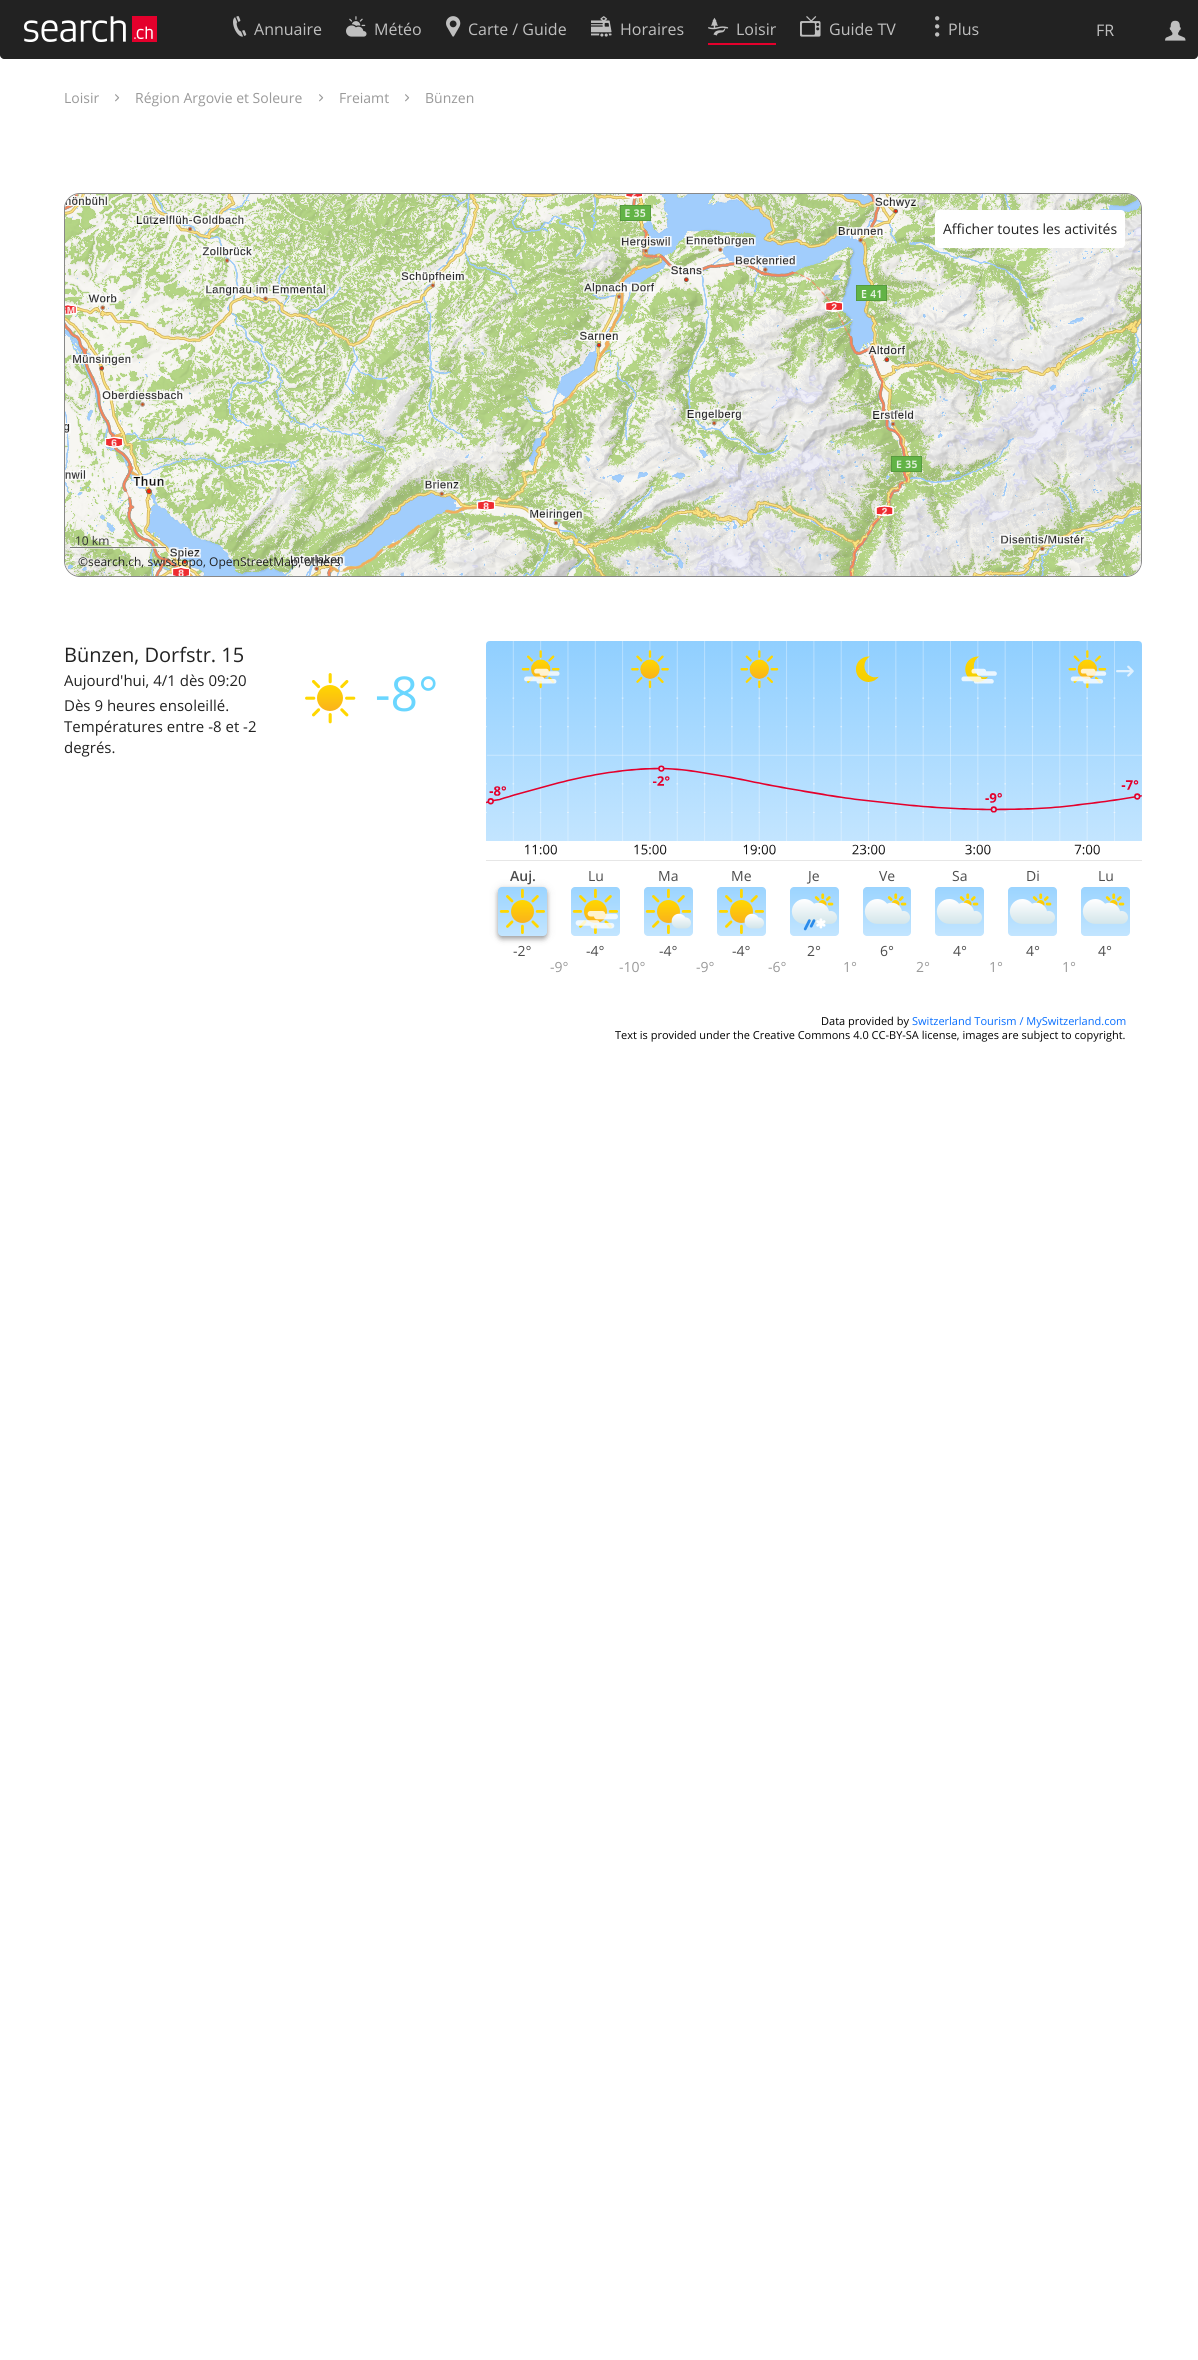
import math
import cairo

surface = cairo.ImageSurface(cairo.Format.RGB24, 1198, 2360)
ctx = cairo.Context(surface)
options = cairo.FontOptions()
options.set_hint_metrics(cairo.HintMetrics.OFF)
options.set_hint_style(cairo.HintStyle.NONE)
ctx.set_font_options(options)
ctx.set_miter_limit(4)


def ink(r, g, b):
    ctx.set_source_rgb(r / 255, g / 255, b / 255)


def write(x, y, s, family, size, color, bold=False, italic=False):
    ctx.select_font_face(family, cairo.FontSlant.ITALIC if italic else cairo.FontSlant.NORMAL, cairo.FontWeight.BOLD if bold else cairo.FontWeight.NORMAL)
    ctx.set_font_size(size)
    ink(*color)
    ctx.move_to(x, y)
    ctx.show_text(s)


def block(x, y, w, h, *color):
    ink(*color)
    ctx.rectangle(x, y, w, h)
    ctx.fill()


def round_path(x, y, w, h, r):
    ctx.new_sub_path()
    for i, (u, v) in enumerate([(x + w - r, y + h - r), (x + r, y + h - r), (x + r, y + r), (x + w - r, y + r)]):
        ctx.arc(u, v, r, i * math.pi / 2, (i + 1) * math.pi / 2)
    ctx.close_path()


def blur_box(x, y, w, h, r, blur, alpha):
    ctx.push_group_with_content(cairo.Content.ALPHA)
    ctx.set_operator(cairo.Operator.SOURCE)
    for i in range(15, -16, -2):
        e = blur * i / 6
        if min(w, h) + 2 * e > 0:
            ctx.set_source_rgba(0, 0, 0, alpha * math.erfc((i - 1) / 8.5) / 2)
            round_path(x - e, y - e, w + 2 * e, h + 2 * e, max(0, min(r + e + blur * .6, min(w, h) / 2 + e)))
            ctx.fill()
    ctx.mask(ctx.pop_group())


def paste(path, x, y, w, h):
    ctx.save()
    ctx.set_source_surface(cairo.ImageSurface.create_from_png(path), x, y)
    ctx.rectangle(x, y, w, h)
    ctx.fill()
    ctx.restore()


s1 = dict(family="Open Sans", size=16, color=(191, 191, 191))
s2 = dict(family="Open Sans", size=14, color=(153, 153, 153))
s3 = dict(family="Open Sans", size=14, color=(34, 34, 34))
s4 = dict(family="Open Sans", size=12, color=(51, 51, 51))
s5 = dict(family="Open Sans", size=12, color=(34, 34, 34))
s6 = dict(family="Open Sans", size=20, color=(34, 34, 34))
s7 = dict(family="Open Sans", size=15, color=(34, 34, 34))
s8 = dict(family="Open Sans", size=48, color=(106, 214, 255))
s9 = dict(family="Open Sans SemiBold", size=14, color=(76, 76, 76))
s10 = dict(family="Open Sans", size=14, color=(76, 76, 76))
s11 = dict(family="Open Sans", size=11, color=(0, 0, 0))
s12 = dict(family="Open Sans", size=11, color=(5, 109, 255))

ink(255, 255, 255)
ctx.paint()
ink(34, 34, 34)
ctx.new_path()
ctx.move_to(0, 0)
ctx.line_to(1198, 0)
ctx.line_to(1198, 55)
ctx.curve_to(1198, 57, 1196, 59, 1194, 59)
ctx.line_to(4, 59)
ctx.curve_to(2, 59, 0, 57, 0, 55)
ctx.close_path()
ctx.fill()
paste("pic1.png", 24, 16, 133, 26)
paste("pic2.png", 233, 16, 14, 21)
write(254, 35, "Annuaire", **s1)
paste("pic3.png", 346, 16, 21, 21)
write(374, 35, "Météo", **s1)
paste("pic4.png", 446, 16, 15, 21)
write(468, 35, "Carte / Guide", **s1)
paste("pic5.png", 591, 16, 21, 21)
write(620, 35, "Horaires", **s1)
block(708, 43, 68, 2, 228, 0, 44)
paste("pic6.png", 708, 17, 21, 19)
write(736, 35, "Loisir", **s1)
paste("pic7.png", 800, 16, 21, 21)
write(829, 35, "Guide TV", **s1)
paste("pic8.png", 935, 16, 5, 21)
write(948, 35, "Plus", **s1)
write(1096, 36, "FR", **s1)
paste("pic9.png", 1165, 20, 21, 21)
write(64, 103, "Loisir", **s2)
paste("pic10.png", 115, 94, 5, 8)
write(135, 103, "Région Argovie et Soleure", **s2)
paste("pic10.png", 319, 94, 5, 8)
write(339, 103, "Freiamt", **s2)
paste("pic10.png", 405, 94, 5, 8)
write(425, 103, "Bünzen", **s2)
ink(250, 250, 250)
round_path(64.5, 193.5, 1077, 383, 15.5)
ctx.fill_preserve()
ink(136, 136, 136)
ctx.set_line_width(1)
ctx.stroke()
paste("pic11.png", 65, 194, 1076, 382)
ink(255, 255, 255)
round_path(935, 210, 190, 38, 4)
ctx.fill()
write(943, 234, "Afficher toutes les activités", **s3)
ctx.set_source_rgba(1, 1, 1, 0.5)
ctx.rectangle(70, 548, 96, 1)
ctx.fill()
ctx.rectangle(70, 546, 96, 1)
ctx.fill()
block(70, 547, 96, 1, 119, 119, 119)
write(75, 545, "10 km", **s4)
write(78, 566, "©search.ch, swisstopo, OpenStreetMap, others", **s5)
write(64, 662, "Bünzen, Dorfstr. 15", **s6)
write(64, 686, "Aujourd'hui, 4/1 dès 09:20", **s7)
paste("pic12.png", 305, 673, 51, 51)
write(375, 711, "-8°", **s8)
write(64, 711, "Dès 9 heures ensoleillé.", **s7)
write(64, 732, "Températures entre -8 et -2", **s7)
write(64, 753, "degrés.", **s7)
paste("pic13.png", 486, 641, 656, 214)
paste("pic14.png", 1116, 665, 18, 12)
block(486, 860, 656, 1, 230, 230, 230)
write(510, 881, "Auj.", **s9)
ink(0, 0, 0)
blur_box(498, 889, 49, 49, 4, 2, 0.2)
blur_box(498, 888, 49, 49, 4, 5, 0.12)
blur_box(498, 891, 49, 49, 4, 2.5, 0.14)
paste("pic15.png", 498, 887, 49, 49)
write(588, 881, "Lu", **s10)
paste("pic16.png", 571, 887, 49, 49)
write(658, 881, "Ma", **s10)
paste("pic17.png", 644, 887, 49, 49)
write(731, 881, "Me", **s10)
paste("pic17.png", 717, 887, 49, 49)
write(808, 881, "Je", **s10)
paste("pic18.png", 790, 887, 49, 49)
write(879, 881, "Ve", **s10)
paste("pic19.png", 863, 887, 48, 49)
write(952, 881, "Sa", **s10)
paste("pic20.png", 935, 887, 49, 49)
write(1026, 881, "Di", **s10)
paste("pic20.png", 1008, 887, 49, 49)
write(1098, 881, "Lu", **s10)
paste("pic20.png", 1081, 887, 49, 49)
write(513, 956, "-2°", **s10)
write(586, 956, "-4°", **s10)
write(659, 956, "-4°", **s10)
write(732, 956, "-4°", **s10)
write(807, 956, "2°", **s10)
write(880, 956, "6°", **s10)
write(953, 956, "4°", **s10)
write(1026, 956, "4°", **s10)
write(1098, 956, "4°", **s10)
write(550, 972, "-9°", **s2)
write(619, 972, "-10°", **s2)
write(696, 972, "-9°", **s2)
write(768, 972, "-6°", **s2)
write(843, 972, "1°", **s2)
write(916, 972, "2°", **s2)
write(989, 972, "1°", **s2)
write(1062, 972, "1°", **s2)
write(821, 1025, "Data provided by", **s11)
write(912, 1025, "Switzerland Tourism / MySwitzerland.com", **s12)
write(615, 1039, "Text is provided under the Creative Commons 4.0 CC-BY-SA license, images are subject to copyright.", **s11)
surface.write_to_png("screenshot.png")
